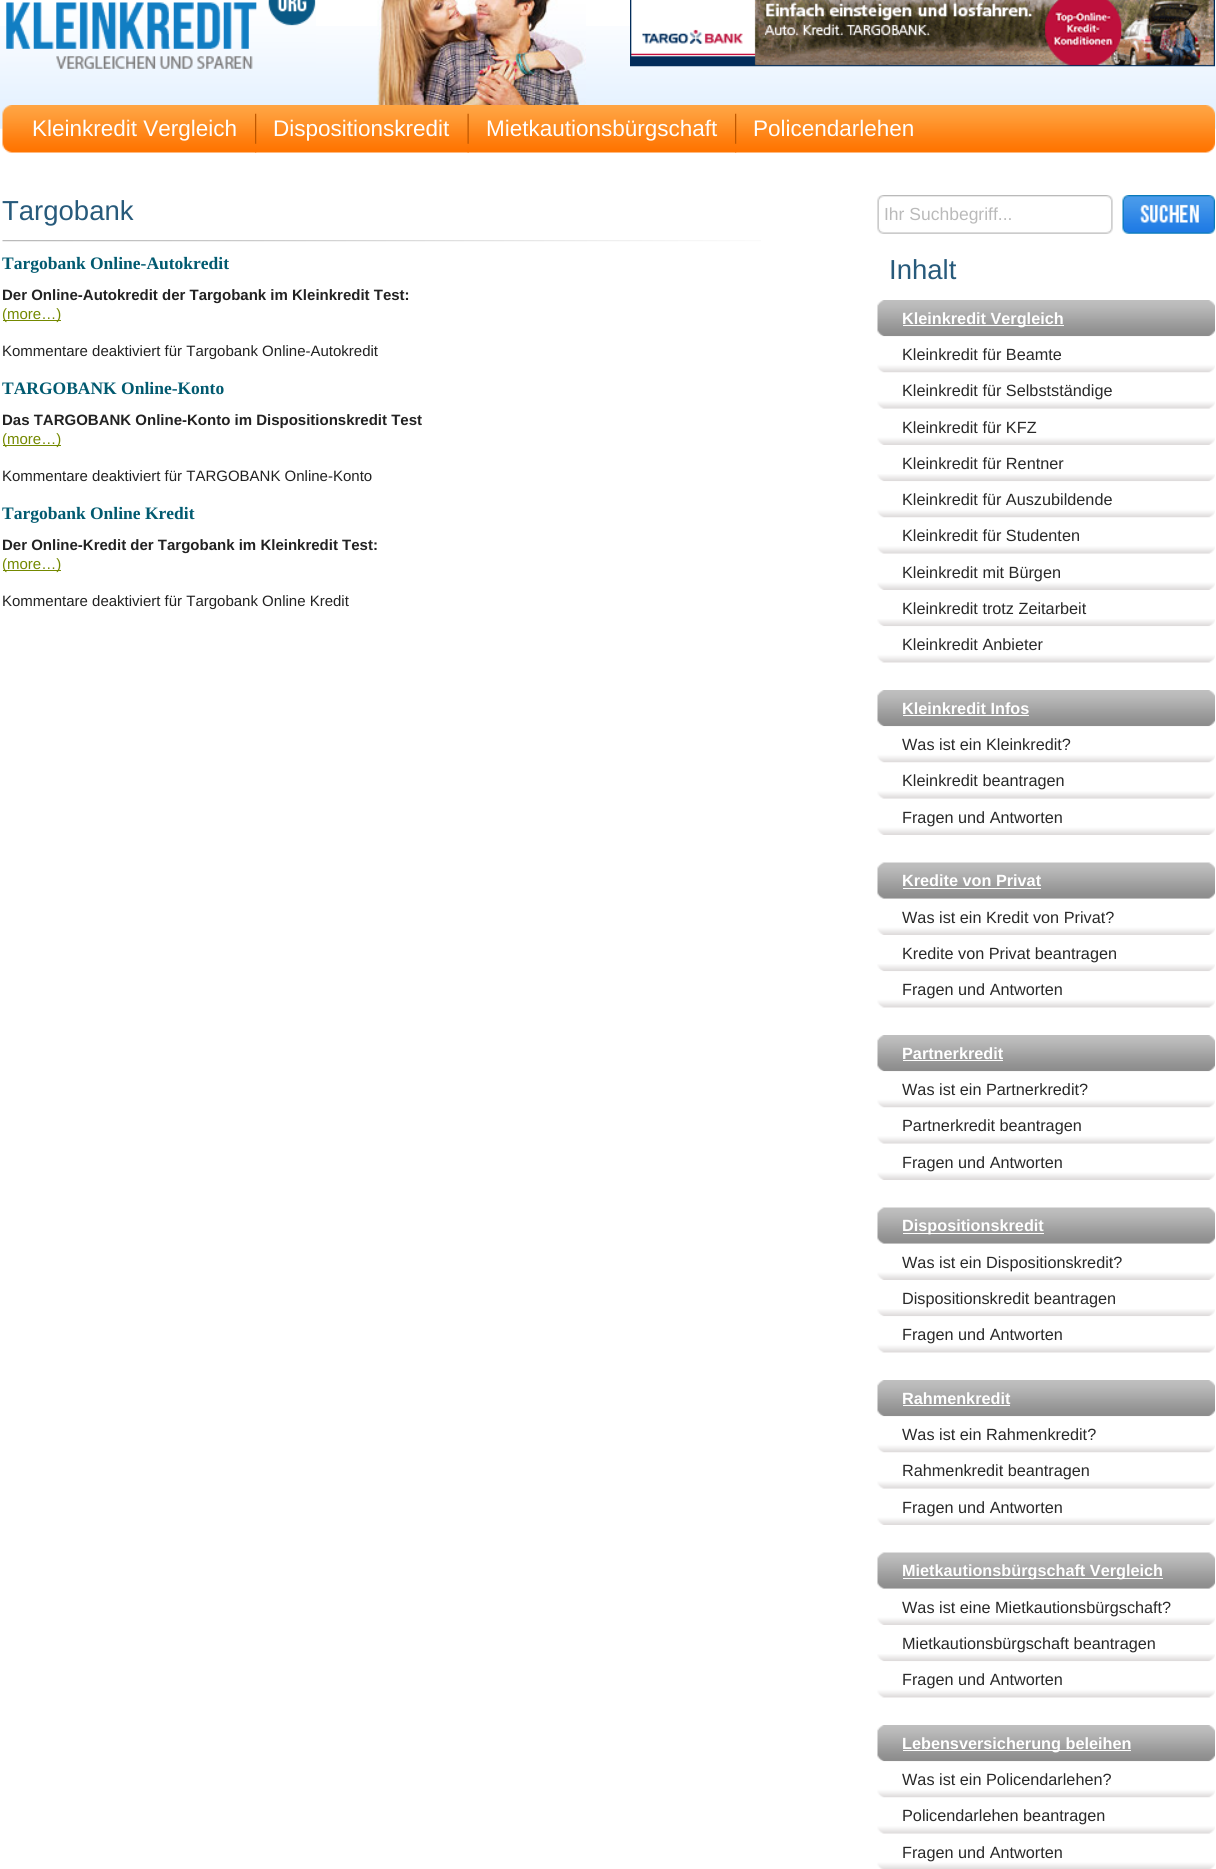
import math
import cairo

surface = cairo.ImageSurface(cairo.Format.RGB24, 1216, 1869)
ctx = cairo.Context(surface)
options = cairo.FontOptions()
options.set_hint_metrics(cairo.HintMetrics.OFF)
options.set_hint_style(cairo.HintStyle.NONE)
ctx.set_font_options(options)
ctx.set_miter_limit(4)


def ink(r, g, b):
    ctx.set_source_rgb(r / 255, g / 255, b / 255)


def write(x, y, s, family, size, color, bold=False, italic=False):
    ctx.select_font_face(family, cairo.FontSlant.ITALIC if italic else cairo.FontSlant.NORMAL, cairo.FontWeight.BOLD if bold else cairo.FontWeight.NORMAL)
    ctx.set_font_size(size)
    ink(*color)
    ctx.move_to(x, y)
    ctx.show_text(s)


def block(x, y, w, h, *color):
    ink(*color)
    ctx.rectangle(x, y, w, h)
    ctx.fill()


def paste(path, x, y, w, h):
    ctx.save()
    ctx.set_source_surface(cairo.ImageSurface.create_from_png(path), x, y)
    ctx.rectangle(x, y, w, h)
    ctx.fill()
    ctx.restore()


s1 = dict(family="Liberation Sans", size=22.5, color=(255, 255, 255))
s2 = dict(family="Liberation Sans", size=27.5, color=(39, 90, 123))
s3 = dict(family="Liberation Serif", size=17.5, color=(1, 90, 112), bold=True)
s4 = dict(family="Liberation Sans", size=15, color=(34, 34, 34), bold=True)
s5 = dict(family="Liberation Sans", size=15, color=(116, 137, 0))
s6 = dict(family="Liberation Sans", size=15, color=(34, 34, 34))
s7 = dict(family="Liberation Sans", size=17.5, color=(186, 186, 186))
s8 = dict(family="Liberation Sans", size=16.25, color=(255, 255, 255), bold=True)
s9 = dict(family="Liberation Sans", size=16.25, color=(41, 41, 41))

ink(255, 255, 255)
ctx.paint()
paste("pic1.png", 0, 26, 1216, 103)
paste("pic2.png", 377, 0, 209, 105)
paste("pic3.png", 6, 0, 310, 69)
paste("pic4.png", 630, 0, 585, 67)
paste("pic5.png", 2, 105, 1213, 48)
paste("pic6.png", 255, 113, 2, 40)
write(32, 136, "Kleinkredit Vergleich", **s1)
paste("pic7.png", 467, 113, 2, 40)
write(273, 136, "Dispositionskredit", **s1)
paste("pic6.png", 735, 113, 2, 40)
write(486, 136, "Mietkautionsbürgschaft", **s1)
write(753, 136, "Policendarlehen", **s1)
paste("pic8.png", 2, 240, 759, 2)
write(2, 220, "Targobank", **s2)
write(2, 269, "Targobank Online-Autokredit", **s3)
write(2, 300, "Der Online-Autokredit der Targobank im Kleinkredit Test:", **s4)
block(3, 320, 58, 1, 116, 137, 0)
write(2, 319, "(more…)", **s5)
write(2, 356, "Kommentare deaktiviert für Targobank Online-Autokredit", **s6)
write(2, 394, "TARGOBANK Online-Konto", **s3)
write(2, 425, "Das TARGOBANK Online-Konto im Dispositionskredit Test", **s4)
block(3, 445, 58, 1, 116, 137, 0)
write(2, 444, "(more…)", **s5)
write(2, 481, "Kommentare deaktiviert für TARGOBANK Online-Konto", **s6)
write(2, 519, "Targobank Online Kredit", **s3)
write(2, 550, "Der Online-Kredit der Targobank im Kleinkredit Test:", **s4)
block(3, 570, 58, 1, 116, 137, 0)
write(2, 569, "(more…)", **s5)
write(2, 606, "Kommentare deaktiviert für Targobank Online Kredit", **s6)
paste("pic9.png", 877, 195, 236, 39)
write(884, 220, "Ihr Suchbegriff...", **s7)
paste("pic10.png", 1122, 195, 93, 39)
write(889, 279, "Inhalt", **s2)
paste("pic11.png", 877, 300, 338, 37)
block(903, 325, 161, 1, 255, 255, 255)
write(902, 324, "Kleinkredit Vergleich", **s8)
paste("pic12.png", 877, 336, 338, 37)
write(902, 360, "Kleinkredit für Beamte", **s9)
paste("pic13.png", 877, 372, 338, 37)
write(902, 396, "Kleinkredit für Selbstständige", **s9)
paste("pic14.png", 877, 408, 338, 37)
write(902, 433, "Kleinkredit für KFZ", **s9)
paste("pic15.png", 877, 474, 338, 8)
write(902, 469, "Kleinkredit für Rentner", **s9)
paste("pic16.png", 877, 481, 338, 37)
write(902, 505, "Kleinkredit für Auszubildende", **s9)
paste("pic17.png", 877, 517, 338, 37)
write(902, 541, "Kleinkredit für Studenten", **s9)
paste("pic14.png", 877, 553, 338, 37)
write(902, 578, "Kleinkredit mit Bürgen", **s9)
paste("pic15.png", 877, 619, 338, 8)
write(902, 614, "Kleinkredit trotz Zeitarbeit", **s9)
paste("pic16.png", 877, 626, 338, 37)
write(902, 650, "Kleinkredit Anbieter", **s9)
paste("pic11.png", 877, 690, 338, 37)
write(902, 714, "Kleinkredit Infos", **s8)
block(903, 715, 126, 1, 255, 255, 255)
paste("pic12.png", 877, 726, 338, 37)
write(902, 750, "Was ist ein Kleinkredit?", **s9)
paste("pic13.png", 877, 762, 338, 37)
write(902, 786, "Kleinkredit beantragen", **s9)
paste("pic14.png", 877, 798, 338, 37)
write(902, 823, "Fragen und Antworten", **s9)
paste("pic18.png", 877, 862, 338, 37)
write(902, 886, "Kredite von Privat", **s8)
block(903, 888, 138, 1, 255, 255, 255)
paste("pic19.png", 877, 898, 338, 37)
write(902, 923, "Was ist ein Kredit von Privat?", **s9)
paste("pic15.png", 877, 964, 338, 8)
write(902, 959, "Kredite von Privat beantragen", **s9)
paste("pic16.png", 877, 971, 338, 37)
write(902, 995, "Fragen und Antworten", **s9)
paste("pic11.png", 877, 1035, 338, 37)
write(902, 1059, "Partnerkredit", **s8)
block(903, 1060, 100, 1, 255, 255, 255)
paste("pic12.png", 877, 1071, 338, 37)
write(902, 1095, "Was ist ein Partnerkredit?", **s9)
paste("pic17.png", 877, 1107, 338, 37)
write(902, 1131, "Partnerkredit beantragen", **s9)
paste("pic14.png", 877, 1143, 338, 37)
write(902, 1168, "Fragen und Antworten", **s9)
paste("pic18.png", 877, 1207, 338, 37)
block(903, 1233, 141, 1, 255, 255, 255)
write(902, 1231, "Dispositionskredit", **s8)
paste("pic19.png", 877, 1243, 338, 37)
write(902, 1268, "Was ist ein Dispositionskredit?", **s9)
paste("pic15.png", 877, 1309, 338, 8)
write(902, 1304, "Dispositionskredit beantragen", **s9)
paste("pic16.png", 877, 1316, 338, 37)
write(902, 1340, "Fragen und Antworten", **s9)
paste("pic11.png", 877, 1380, 338, 37)
write(902, 1404, "Rahmenkredit", **s8)
block(903, 1405, 107, 1, 255, 255, 255)
paste("pic12.png", 877, 1416, 338, 37)
write(902, 1440, "Was ist ein Rahmenkredit?", **s9)
paste("pic13.png", 877, 1452, 338, 37)
write(902, 1476, "Rahmenkredit beantragen", **s9)
paste("pic14.png", 877, 1488, 338, 37)
write(902, 1513, "Fragen und Antworten", **s9)
paste("pic18.png", 877, 1552, 338, 37)
block(903, 1578, 260, 1, 255, 255, 255)
write(902, 1576, "Mietkautionsbürgschaft Vergleich", **s8)
paste("pic19.png", 877, 1588, 338, 37)
write(902, 1613, "Was ist eine Mietkautionsbürgschaft?", **s9)
paste("pic15.png", 877, 1654, 338, 8)
write(902, 1649, "Mietkautionsbürgschaft beantragen", **s9)
paste("pic16.png", 877, 1661, 338, 37)
write(902, 1685, "Fragen und Antworten", **s9)
paste("pic11.png", 877, 1725, 338, 37)
block(903, 1750, 228, 1, 255, 255, 255)
write(902, 1749, "Lebensversicherung beleihen", **s8)
paste("pic12.png", 877, 1761, 338, 37)
write(902, 1785, "Was ist ein Policendarlehen?", **s9)
paste("pic17.png", 877, 1797, 338, 37)
write(902, 1821, "Policendarlehen beantragen", **s9)
paste("pic20.png", 877, 1833, 338, 36)
write(902, 1858, "Fragen und Antworten", **s9)
surface.write_to_png("screenshot.png")
